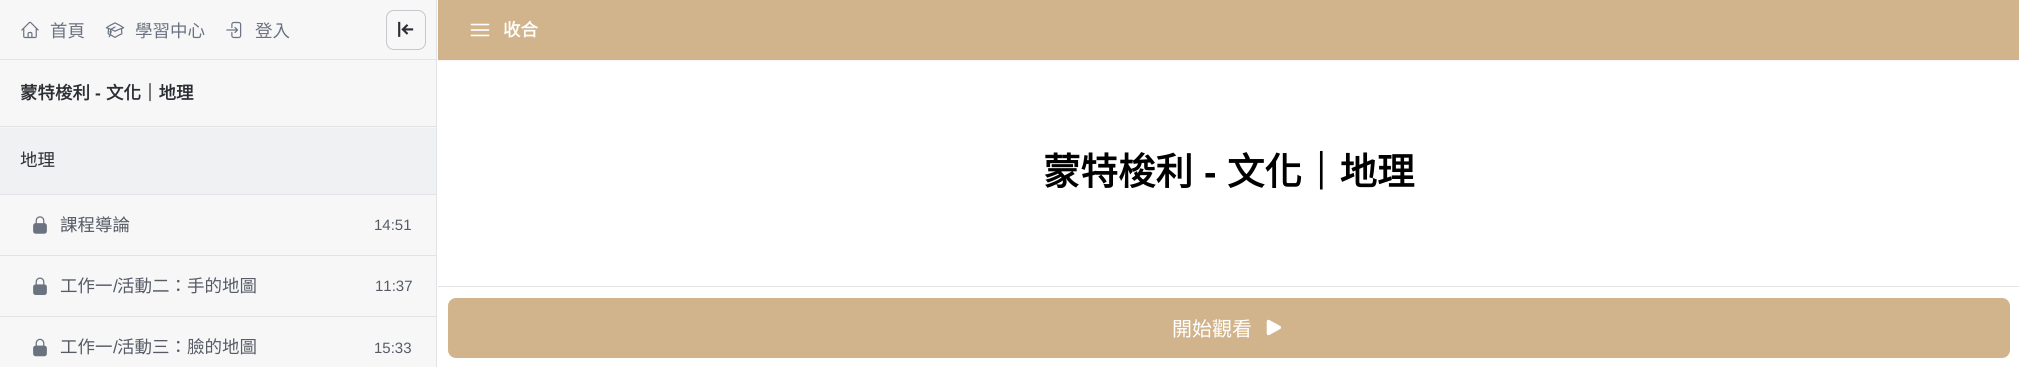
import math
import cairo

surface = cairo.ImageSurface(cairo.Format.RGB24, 2019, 367)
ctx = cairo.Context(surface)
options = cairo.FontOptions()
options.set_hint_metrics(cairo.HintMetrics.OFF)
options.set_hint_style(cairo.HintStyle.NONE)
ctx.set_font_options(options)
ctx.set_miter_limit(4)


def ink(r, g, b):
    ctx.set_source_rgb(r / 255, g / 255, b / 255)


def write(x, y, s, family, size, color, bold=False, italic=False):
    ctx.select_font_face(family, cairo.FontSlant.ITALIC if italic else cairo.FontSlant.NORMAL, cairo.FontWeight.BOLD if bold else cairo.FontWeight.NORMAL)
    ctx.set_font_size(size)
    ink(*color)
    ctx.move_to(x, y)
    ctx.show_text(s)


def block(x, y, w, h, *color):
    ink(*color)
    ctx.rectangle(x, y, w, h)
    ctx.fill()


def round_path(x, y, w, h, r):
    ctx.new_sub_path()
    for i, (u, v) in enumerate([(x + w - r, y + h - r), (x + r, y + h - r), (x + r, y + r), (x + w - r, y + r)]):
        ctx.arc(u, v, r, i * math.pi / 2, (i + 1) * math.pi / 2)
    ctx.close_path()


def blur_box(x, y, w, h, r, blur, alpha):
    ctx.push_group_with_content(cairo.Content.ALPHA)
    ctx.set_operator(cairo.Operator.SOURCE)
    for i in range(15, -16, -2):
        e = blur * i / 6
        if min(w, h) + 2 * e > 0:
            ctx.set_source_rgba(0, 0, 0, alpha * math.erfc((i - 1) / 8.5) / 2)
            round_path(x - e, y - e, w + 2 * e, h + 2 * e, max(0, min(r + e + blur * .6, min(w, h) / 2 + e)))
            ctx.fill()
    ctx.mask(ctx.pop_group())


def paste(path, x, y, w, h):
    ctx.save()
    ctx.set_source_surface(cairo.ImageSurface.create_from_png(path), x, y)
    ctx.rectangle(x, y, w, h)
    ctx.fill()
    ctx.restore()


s1 = dict(family="Noto Sans CJK TC", size=17.5, color=(107, 114, 128))
s2 = dict(family="Noto Sans CJK TC", size=17.5, color=(43, 46, 51), bold=True)
s3 = dict(family="Liberation Sans", size=17.5, color=(43, 46, 51), bold=True)
s4 = dict(family="Noto Sans CJK TC", size=17.5, color=(43, 46, 51))
s5 = dict(family="Noto Sans CJK TC", size=17.5, color=(86, 91, 102))
s6 = dict(family="Liberation Sans", size=15, color=(86, 91, 102))
s7 = dict(family="Liberation Sans", size=17.5, color=(86, 91, 102))
s8 = dict(family="Noto Sans CJK TC", size=17.5, color=(255, 255, 255), bold=True)
s9 = dict(family="Noto Sans CJK TC", size=20, color=(255, 255, 255))
s10 = dict(family="Noto Sans CJK TC", size=37.5, color=(0, 0, 0), bold=True)
s11 = dict(family="Liberation Sans", size=37.5, color=(0, 0, 0), bold=True)

ink(255, 255, 255)
ctx.paint()
ink(0, 0, 0)
blur_box(438, 1, 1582, 60, 0, 1, 0.05)
block(0, 0, 436, 367, 247, 247, 247)
block(436, 0, 1, 367, 225, 227, 230)
block(0, 59, 436, 1, 225, 227, 230)
paste("pic1.png", 21, 21, 18, 18)
write(50, 37, "首頁", **s1)
paste("pic2.png", 105, 22, 20, 16)
write(135, 37, "學習中心", **s1)
paste("pic3.png", 226, 21, 16, 18)
write(255, 37, "登入", **s1)
round_path(386.5, 10.5, 39, 39, 7.5)
ink(196, 199, 204)
ctx.set_line_width(1)
ctx.stroke()
paste("pic4.png", 398, 21, 16, 16)
write(20, 99, "蒙特梭利", **s2)
write(95, 99, "-", **s3)
write(106, 99, "文化｜地理", **s2)
block(0, 126, 436, 1, 225, 227, 230)
block(0, 128, 436, 66, 240, 241, 242)
block(0, 194, 436, 1, 225, 227, 230)
write(20, 166, "地理", **s4)
paste("pic5.png", 33, 216, 14, 18)
write(60, 231, "課程導論", **s5)
write(374, 230, "14:51", **s6)
block(0, 255, 436, 1, 225, 227, 230)
paste("pic6.png", 33, 277, 14, 18)
write(60, 292, "工作一", **s5)
write(113, 292, "/", **s7)
write(117, 292, "活動二：手的地圖", **s5)
write(375, 291, "11:37", **s6)
block(0, 316, 436, 1, 225, 227, 230)
paste("pic7.png", 33, 338, 14, 19)
write(60, 353, "工作一", **s5)
write(113, 353, "/", **s7)
write(117, 353, "活動三：臉的地圖", **s5)
write(374, 353, "15:33", **s6)
block(438, 0, 1581, 60, 210, 180, 140)
paste("pic8.png", 470, 23, 20, 14)
write(503, 36, "收合", **s8)
block(438, 286, 1581, 1, 225, 227, 230)
ink(210, 180, 140)
round_path(448, 298, 1562, 60, 8)
ctx.fill()
write(1172, 336, "開始觀看", **s9)
paste("pic9.png", 1266, 319, 15, 17)
write(1043, 185, "蒙特梭利", **s10)
write(1204, 185, "-", **s11)
write(1227, 185, "文化｜地理", **s10)
surface.write_to_png("screenshot.png")
